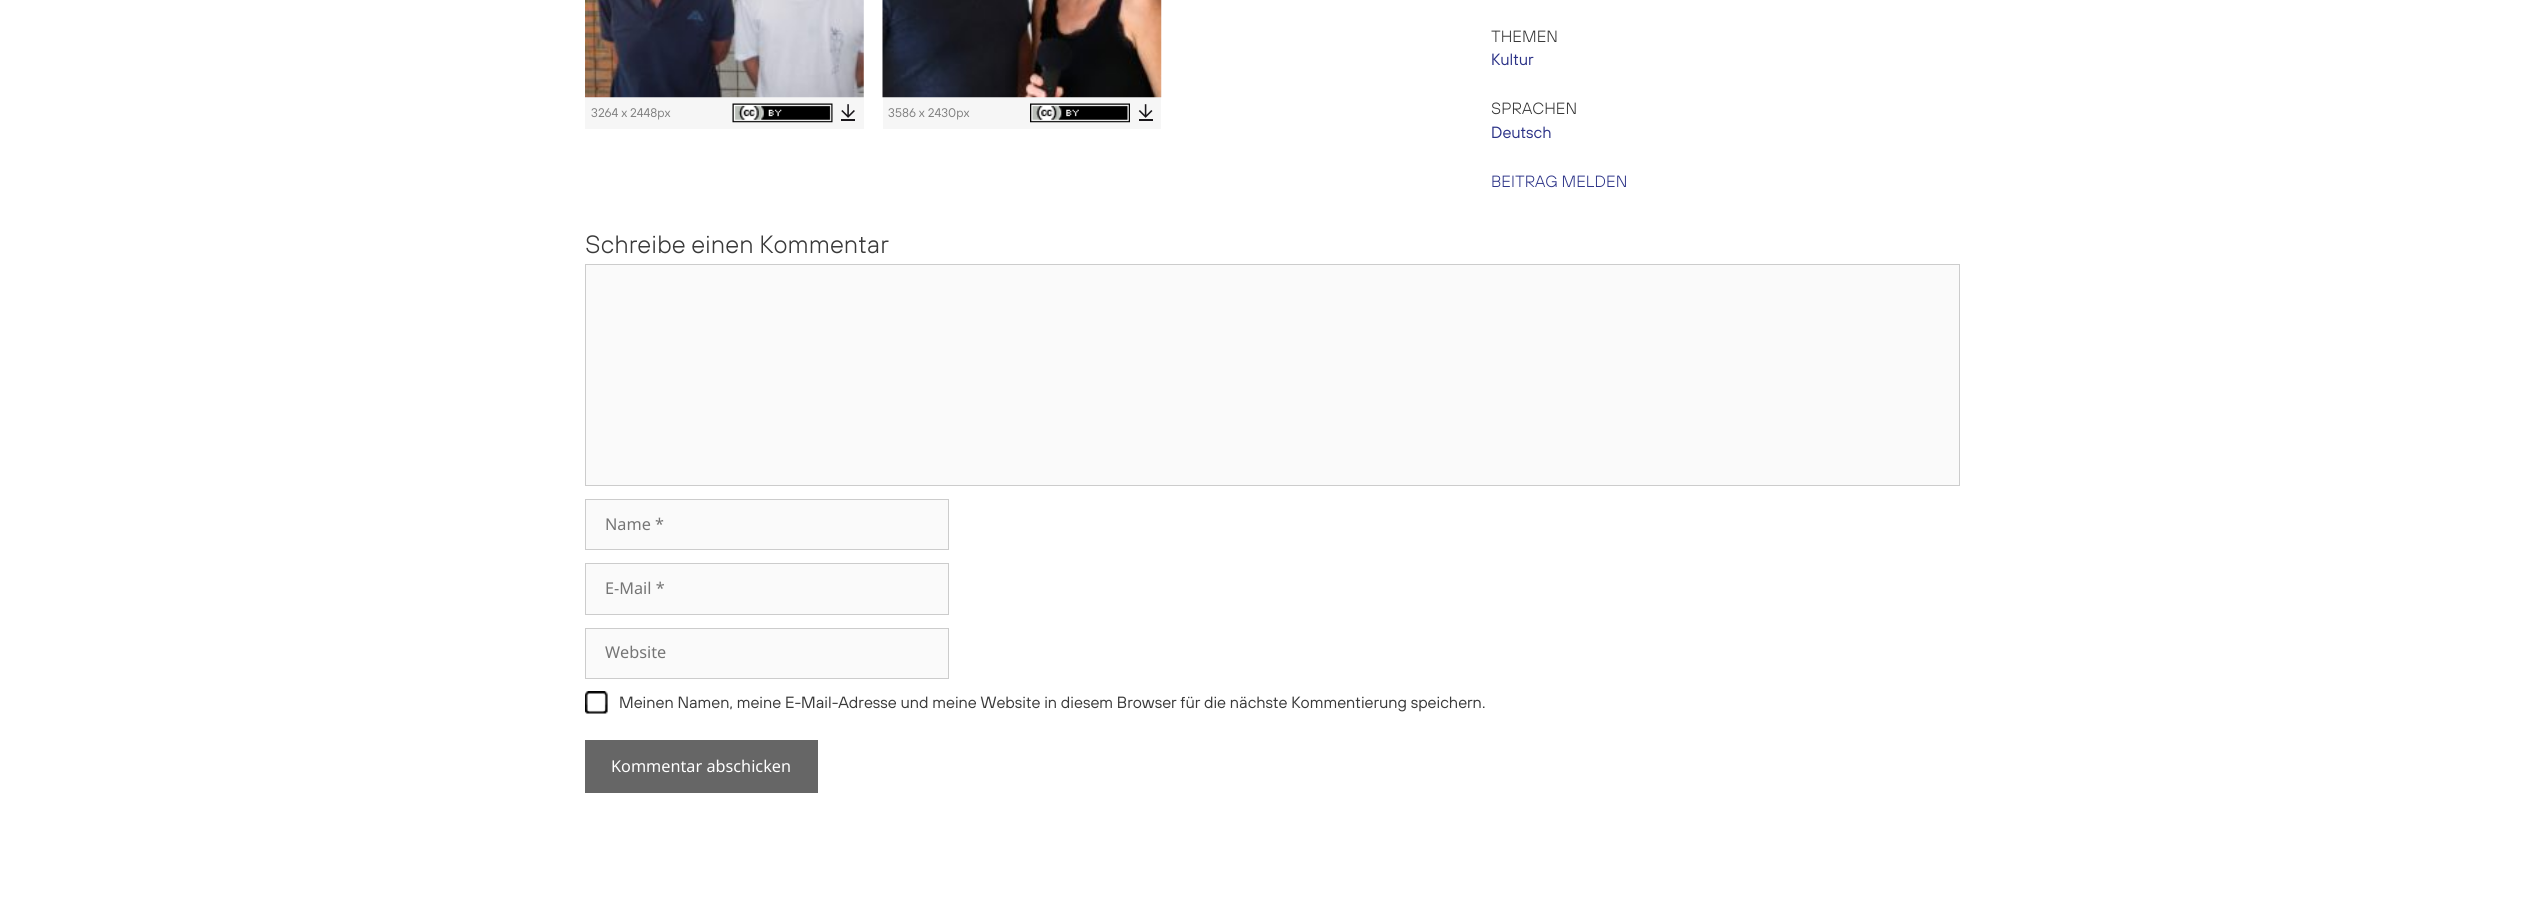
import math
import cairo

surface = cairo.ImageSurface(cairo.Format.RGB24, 2545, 908)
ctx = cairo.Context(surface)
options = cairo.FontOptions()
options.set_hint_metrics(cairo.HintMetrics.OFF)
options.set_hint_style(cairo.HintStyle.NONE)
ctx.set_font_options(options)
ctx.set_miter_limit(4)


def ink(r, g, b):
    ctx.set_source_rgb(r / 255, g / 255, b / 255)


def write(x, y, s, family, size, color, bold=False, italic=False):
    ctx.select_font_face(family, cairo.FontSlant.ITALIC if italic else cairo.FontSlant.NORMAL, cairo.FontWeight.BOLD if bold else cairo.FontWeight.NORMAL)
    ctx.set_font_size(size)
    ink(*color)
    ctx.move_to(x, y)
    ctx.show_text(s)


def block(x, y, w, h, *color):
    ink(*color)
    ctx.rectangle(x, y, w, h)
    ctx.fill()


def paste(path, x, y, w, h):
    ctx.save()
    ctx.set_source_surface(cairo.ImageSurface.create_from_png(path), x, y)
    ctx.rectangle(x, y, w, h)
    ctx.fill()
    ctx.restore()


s1 = dict(family="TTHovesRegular", size=12.5, color=(128, 128, 128))
s2 = dict(family="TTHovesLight", size=16.25, color=(51, 51, 51))
s3 = dict(family="TTHovesRegular", size=16.25, color=(43, 50, 135))
s4 = dict(family="TTHovesLight", size=16.25, color=(43, 50, 135))
s5 = dict(family="TTHovesLight", size=25, color=(58, 58, 58))
s6 = dict(family="Noto Sans", size=16.25, color=(117, 117, 117))
s7 = dict(family="TTHovesRegular", size=16.25, color=(58, 58, 58))
s8 = dict(family="Noto Sans", size=16.25, color=(255, 255, 255))

ink(255, 255, 255)
ctx.paint()
block(585, 0, 279, 129, 246, 246, 246)
paste("pic1.png", 585, 0, 279, 98)
write(591, 117, "3264 x 2448px", **s1)
paste("pic2.png", 732, 103, 101, 20)
paste("pic3.png", 841, 104, 14, 17)
block(883, 97, 278, 32, 246, 246, 246)
paste("pic4.png", 882, 0, 280, 98)
write(888, 117, "3586 x 2430px", **s1)
paste("pic5.png", 1030, 103, 100, 20)
paste("pic6.png", 1138, 104, 15, 17)
write(1491, 42, "THEMEN", **s2)
write(1491, 65, "Kultur", **s3)
write(1491, 114, "SPRACHEN", **s2)
write(1491, 138, "Deutsch", **s3)
write(1491, 187, "BEITRAG MELDEN", **s4)
write(585, 253, "Schreibe einen Kommentar", **s5)
ink(250, 250, 250)
ctx.rectangle(585.5, 264.5, 1374, 221)
ctx.fill_preserve()
ink(204, 204, 204)
ctx.set_line_width(1)
ctx.stroke()
ink(250, 250, 250)
ctx.rectangle(585.5, 499.5, 363, 50)
ctx.fill_preserve()
ink(204, 204, 204)
ctx.stroke()
write(605, 530, "Name *", **s6)
ink(250, 250, 250)
ctx.rectangle(585.5, 563.5, 363, 51)
ctx.fill_preserve()
ink(204, 204, 204)
ctx.stroke()
write(605, 594, "E-Mail *", **s6)
ink(250, 250, 250)
ctx.rectangle(585.5, 628.5, 363, 50)
ctx.fill_preserve()
ink(204, 204, 204)
ctx.stroke()
write(605, 658, "Website", **s6)
paste("pic7.png", 585, 691, 23, 23)
write(619, 708, "Meinen Namen, meine E-Mail-Adresse und meine Website in diesem Browser für die nächste Kommentierung speichern.", **s7)
block(585, 740, 233, 53, 102, 102, 102)
write(611, 772, "Kommentar abschicken", **s8)
surface.write_to_png("screenshot.png")
